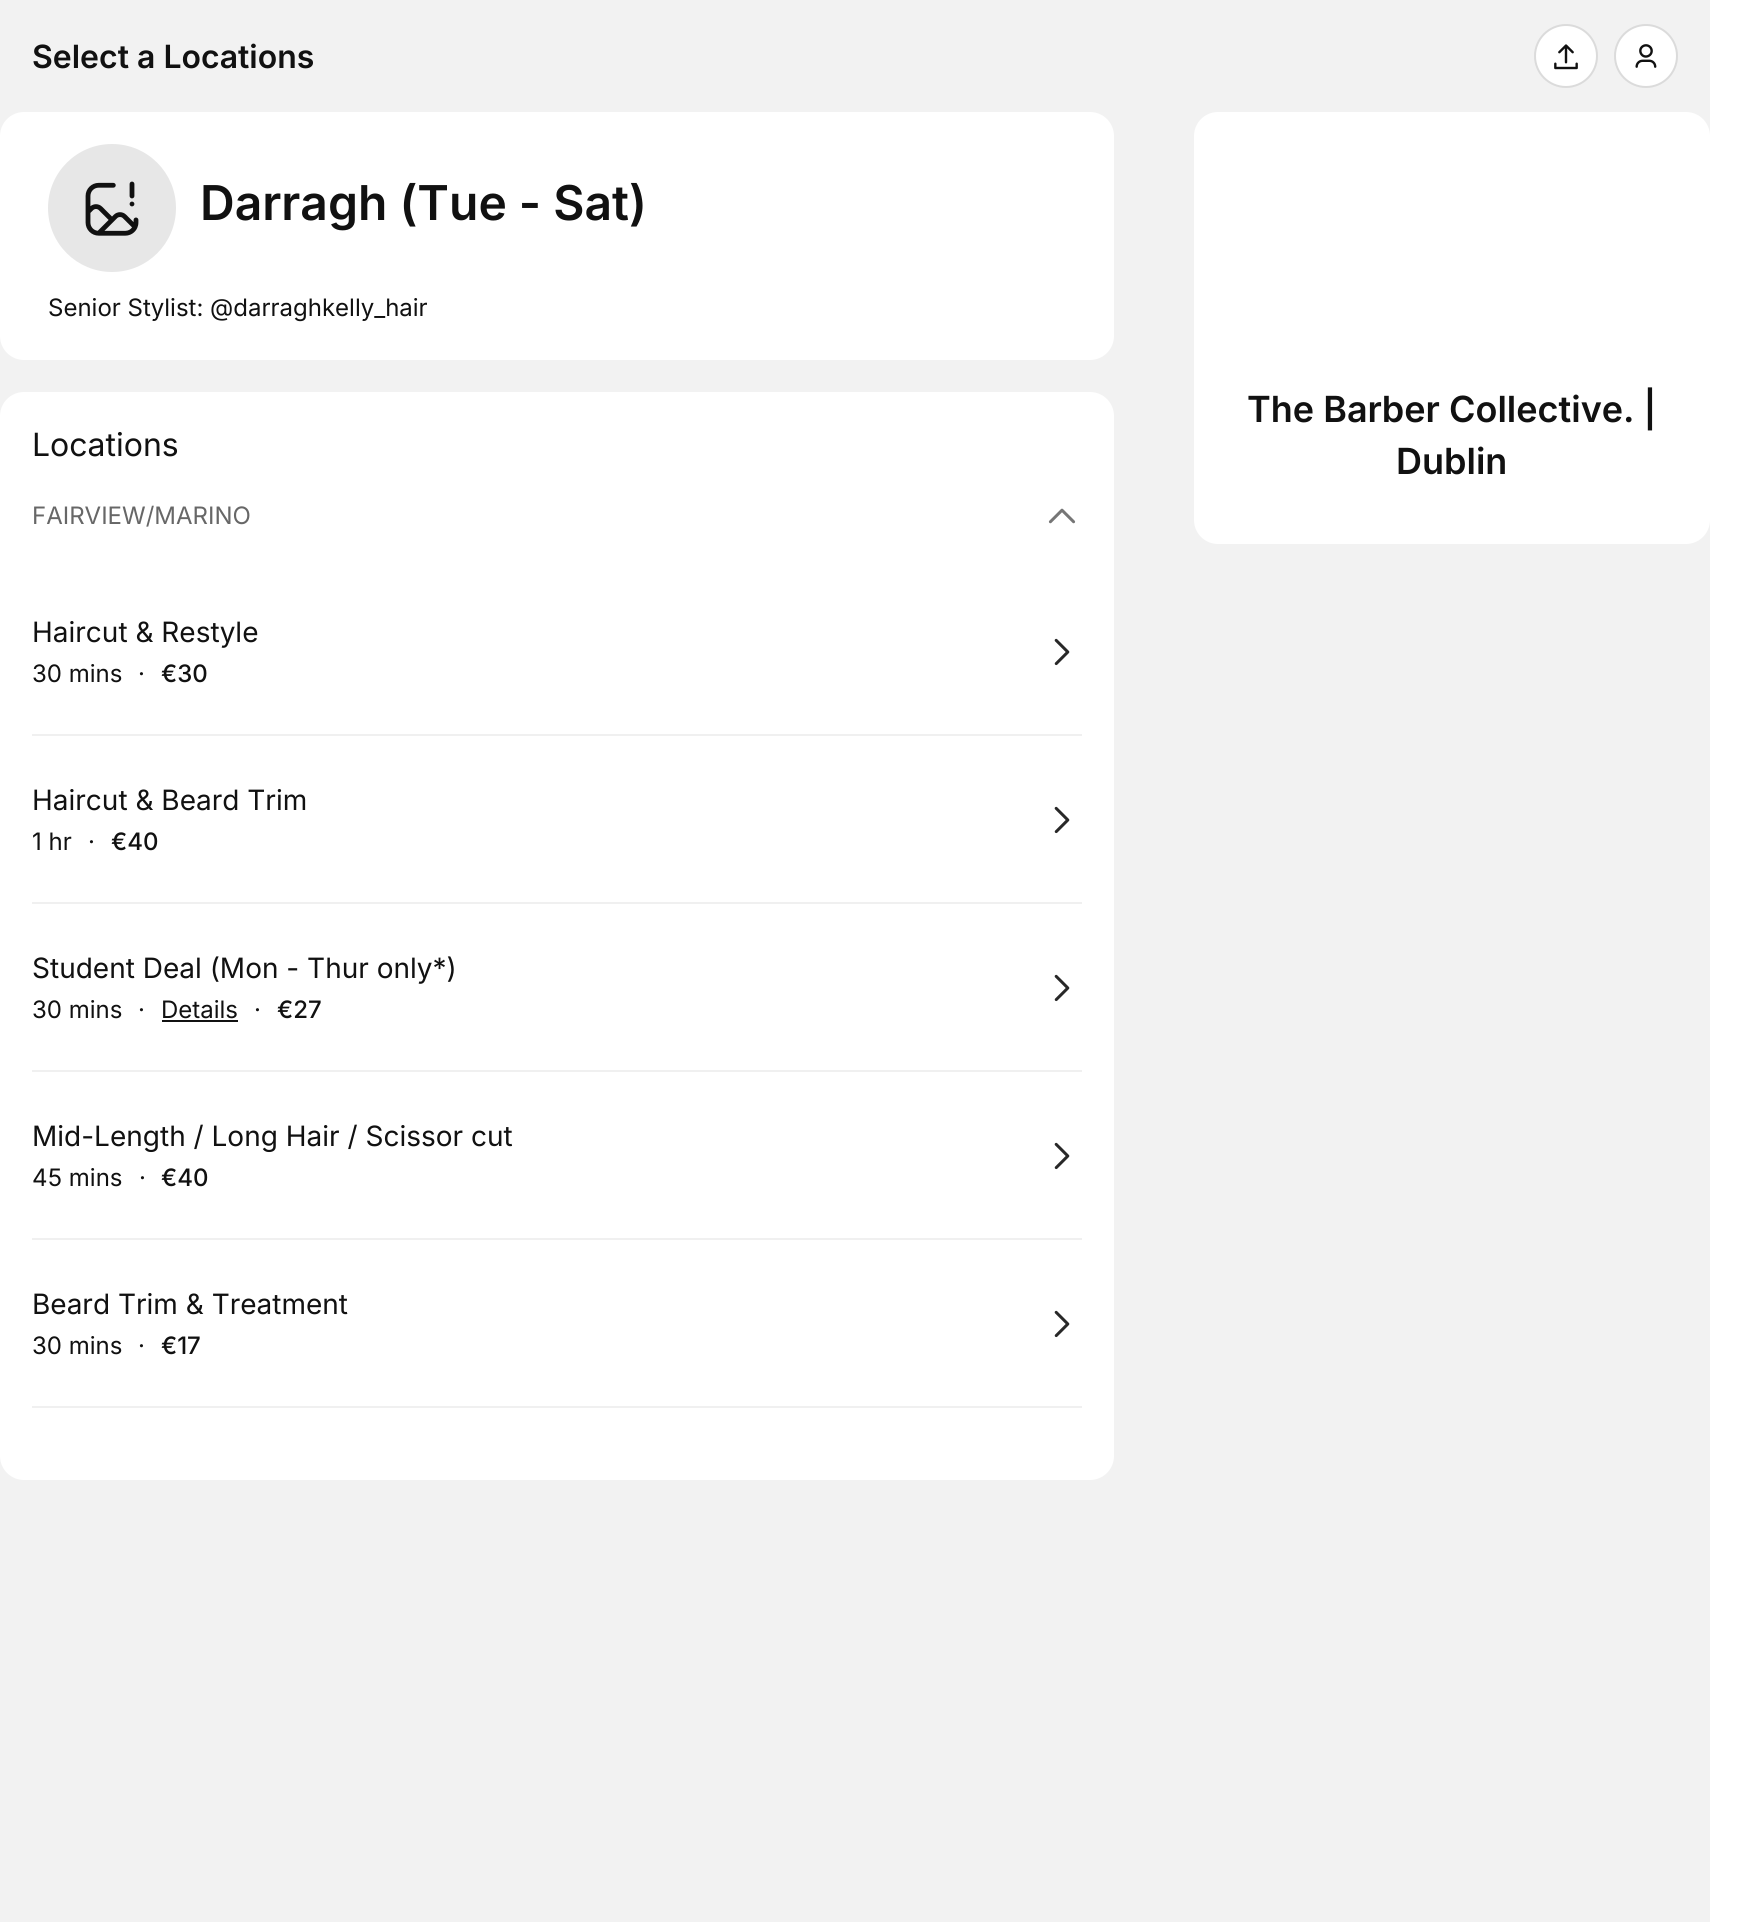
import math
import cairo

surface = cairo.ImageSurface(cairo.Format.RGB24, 1739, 1922)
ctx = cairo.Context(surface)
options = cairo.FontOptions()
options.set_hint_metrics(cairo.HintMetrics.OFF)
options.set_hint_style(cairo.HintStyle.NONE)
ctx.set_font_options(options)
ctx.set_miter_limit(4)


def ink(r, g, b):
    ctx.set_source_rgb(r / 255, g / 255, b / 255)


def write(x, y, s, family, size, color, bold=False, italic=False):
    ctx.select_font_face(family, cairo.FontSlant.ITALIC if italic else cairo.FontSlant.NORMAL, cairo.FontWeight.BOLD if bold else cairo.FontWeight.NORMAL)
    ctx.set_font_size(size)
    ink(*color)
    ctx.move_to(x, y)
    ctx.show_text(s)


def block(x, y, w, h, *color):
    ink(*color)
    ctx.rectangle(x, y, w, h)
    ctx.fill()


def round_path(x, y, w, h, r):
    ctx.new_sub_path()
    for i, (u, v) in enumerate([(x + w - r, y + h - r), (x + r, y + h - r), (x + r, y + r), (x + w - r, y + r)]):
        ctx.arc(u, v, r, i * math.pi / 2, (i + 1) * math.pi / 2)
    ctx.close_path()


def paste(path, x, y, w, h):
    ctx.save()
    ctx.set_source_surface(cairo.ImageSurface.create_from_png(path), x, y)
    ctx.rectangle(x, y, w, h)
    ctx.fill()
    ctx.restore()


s1 = dict(family="Inter SemiBold", size=32, color=(17, 17, 17))
s2 = dict(family="Inter SemiBold", size=48, color=(17, 17, 17))
s3 = dict(family="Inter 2", size=24, color=(17, 17, 17))
s4 = dict(family="Inter", size=32, color=(17, 17, 17))
s5 = dict(family="Inter 2", size=24, color=(103, 103, 103))
s6 = dict(family="Inter 2", size=28, color=(17, 17, 17))
s7 = dict(family="Inter Medium", size=24, color=(17, 17, 17))
s8 = dict(family="Inter SemiBold", size=36, color=(17, 17, 17))

ink(255, 255, 255)
ctx.paint()
block(0, 0, 1710, 1922, 242, 242, 242)
write(32, 68, "Select a Locations", **s1)
ink(255, 255, 255)
ctx.new_path()
ctx.arc(1566, 56, 31, 0, 2 * math.pi)
ctx.fill_preserve()
ink(219, 219, 219)
ctx.stroke()
paste("pic1.png", 1554, 44, 24, 26)
ink(255, 255, 255)
ctx.arc(1646, 56, 31, 0, 2 * math.pi)
ctx.fill_preserve()
ink(219, 219, 219)
ctx.stroke()
paste("pic2.png", 1635, 44, 22, 24)
ink(255, 255, 255)
round_path(0, 112, 1114, 248, 24)
ctx.fill()
ink(231, 231, 231)
ctx.arc(112, 208, 64, 0, 2 * math.pi)
ctx.fill()
paste("pic3.png", 85, 181, 54, 55)
write(200, 220, "Darragh (Tue - Sat)", **s2)
write(48, 316, "Senior Stylist: @darraghkelly_hair", **s3)
ink(255, 255, 255)
round_path(0, 392, 1114, 1088, 24)
ctx.fill()
write(32, 456, "Locations", **s4)
write(32, 524, "FAIRVIEW/MARINO", **s5)
paste("pic4.png", 1048, 508, 28, 16)
block(32, 734, 1050, 2, 240, 240, 240)
write(32, 642, "Haircut & Restyle", **s6)
write(32, 682, "30 mins", **s3)
write(138, 682, "·", **s3)
write(161, 682, "€30", **s7)
paste("pic5.png", 1054, 638, 16, 28)
block(32, 902, 1050, 2, 240, 240, 240)
write(32, 810, "Haircut & Beard Trim", **s6)
write(32, 850, "1 hr", **s3)
write(88, 850, "·", **s3)
write(111, 850, "€40", **s7)
paste("pic5.png", 1054, 806, 16, 28)
block(32, 1070, 1050, 2, 240, 240, 240)
write(32, 978, "Student Deal (Mon - Thur only*)", **s6)
write(32, 1018, "30 mins", **s3)
write(138, 1018, "·", **s3)
write(161, 1018, "Details", **s3)
block(162, 1020, 76, 2, 17, 17, 17)
write(254, 1018, "·", **s3)
write(277, 1018, "€27", **s7)
paste("pic5.png", 1054, 974, 16, 28)
block(32, 1238, 1050, 2, 240, 240, 240)
write(32, 1146, "Mid-Length / Long Hair / Scissor cut", **s6)
write(32, 1186, "45 mins", **s3)
write(139, 1186, "·", **s3)
write(161, 1186, "€40", **s7)
paste("pic5.png", 1054, 1142, 16, 28)
block(32, 1406, 1050, 2, 240, 240, 240)
write(32, 1314, "Beard Trim & Treatment", **s6)
write(32, 1354, "30 mins", **s3)
write(138, 1354, "·", **s3)
write(161, 1354, "€17", **s7)
paste("pic5.png", 1054, 1310, 16, 28)
ink(255, 255, 255)
round_path(1194, 112, 516, 432, 24)
ctx.fill()
write(1247, 422, "The Barber Collective. |", **s8)
write(1396, 474, "Dublin", **s8)
surface.write_to_png("screenshot.png")
